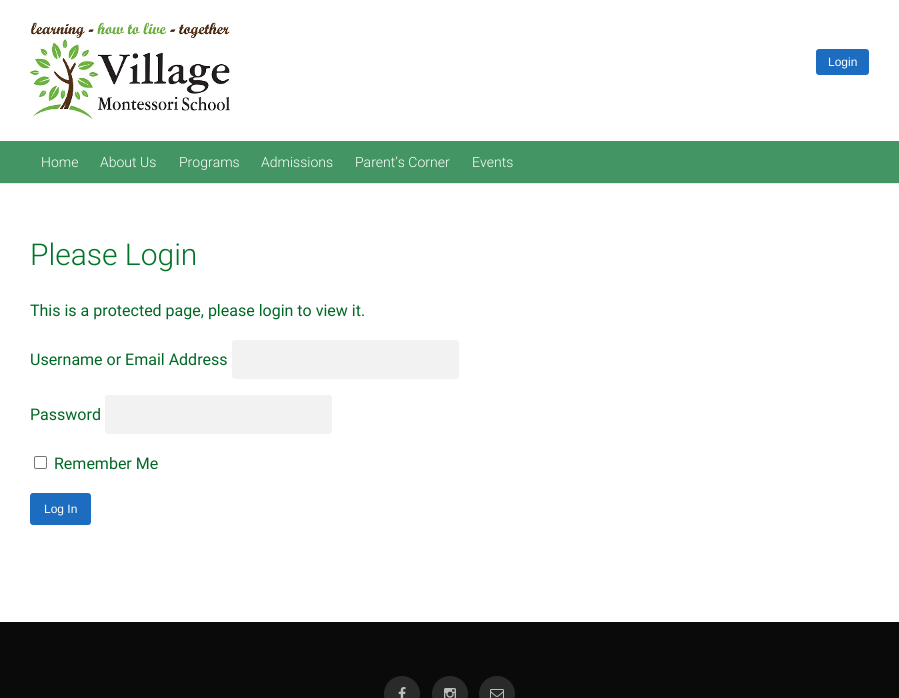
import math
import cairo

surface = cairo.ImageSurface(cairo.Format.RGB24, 899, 698)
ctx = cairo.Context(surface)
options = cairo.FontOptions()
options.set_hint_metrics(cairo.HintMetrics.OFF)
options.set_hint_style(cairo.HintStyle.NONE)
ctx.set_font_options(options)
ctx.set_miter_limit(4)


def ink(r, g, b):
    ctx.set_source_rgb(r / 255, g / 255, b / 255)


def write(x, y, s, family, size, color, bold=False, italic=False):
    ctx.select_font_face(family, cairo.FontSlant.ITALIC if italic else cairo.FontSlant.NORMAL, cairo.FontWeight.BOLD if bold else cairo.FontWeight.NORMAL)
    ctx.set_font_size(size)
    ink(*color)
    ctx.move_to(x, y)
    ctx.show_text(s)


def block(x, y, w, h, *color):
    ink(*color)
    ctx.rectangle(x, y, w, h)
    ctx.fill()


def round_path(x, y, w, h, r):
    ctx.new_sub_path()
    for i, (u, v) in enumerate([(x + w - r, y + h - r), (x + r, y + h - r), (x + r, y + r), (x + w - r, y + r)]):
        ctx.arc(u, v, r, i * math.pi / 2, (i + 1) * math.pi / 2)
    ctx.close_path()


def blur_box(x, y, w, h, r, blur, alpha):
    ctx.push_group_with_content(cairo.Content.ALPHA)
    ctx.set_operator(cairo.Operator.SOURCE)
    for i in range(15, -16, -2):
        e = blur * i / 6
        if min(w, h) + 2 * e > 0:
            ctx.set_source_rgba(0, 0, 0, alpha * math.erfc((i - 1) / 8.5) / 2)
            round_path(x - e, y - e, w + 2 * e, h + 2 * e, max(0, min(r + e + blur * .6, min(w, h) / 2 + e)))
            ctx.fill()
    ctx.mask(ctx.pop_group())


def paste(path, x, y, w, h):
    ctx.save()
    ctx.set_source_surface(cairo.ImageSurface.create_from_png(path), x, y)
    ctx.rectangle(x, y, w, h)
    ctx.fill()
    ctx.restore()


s1 = dict(family="Liberation Sans", size=12, color=(255, 255, 255))
s2 = dict(family="Roboto Light", size=14, color=(255, 255, 255))
s3 = dict(family="Roboto Light", size=30, color=(0, 117, 39))
s4 = dict(family="Roboto", size=16, color=(0, 104, 36))

ink(255, 255, 255)
ctx.paint()
ctx.save()
ctx.rectangle(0, 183, 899, 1)
ctx.clip()
ink(0, 0, 0)
blur_box(0, 1, 899, 183, 0, 0.5, 0.1)
ctx.restore()
paste("pic1.png", 30, 20, 200, 99)
ink(28, 109, 191)
round_path(816, 49, 53, 26, 3)
ctx.fill()
write(828, 66, "Login", **s1)
block(0, 141, 899, 42, 67, 150, 99)
write(41, 167, "Home", **s2)
write(100, 167, "About Us", **s2)
write(179, 167, "Programs", **s2)
write(261, 167, "Admissions", **s2)
write(355, 167, "Parent’s Corner", **s2)
write(472, 167, "Events", **s2)
write(30, 265, "Please Login", **s3)
write(30, 316, "This is a protected page, please login to view it.", **s4)
write(30, 365, "Username or Email Address", **s4)
ink(242, 242, 242)
round_path(232, 340, 227, 39, 3)
ctx.fill()
write(30, 420, "Password", **s4)
ink(242, 242, 242)
round_path(105, 395, 227, 39, 3)
ctx.fill()
round_path(34.5, 456.5, 12, 12, 1.5)
ink(118, 118, 118)
ctx.set_line_width(1)
ctx.stroke()
write(54, 469, "Remember Me", **s4)
ink(28, 109, 191)
round_path(30, 493, 61, 32, 3)
ctx.fill()
write(44, 513, "Log In", **s1)
block(0, 622, 899, 76, 10, 10, 10)
ink(42, 42, 42)
ctx.new_path()
ctx.arc(402, 694, 18, 0, 2 * math.pi)
ctx.fill()
paste("pic2.png", 398, 687, 8, 11)
ctx.arc(450, 694, 18, 0, 2 * math.pi)
ctx.fill()
paste("pic3.png", 444, 688, 12, 10)
ctx.arc(497, 694, 18, 0, 2 * math.pi)
ctx.fill()
paste("pic4.png", 490, 689, 14, 9)
surface.write_to_png("screenshot.png")
